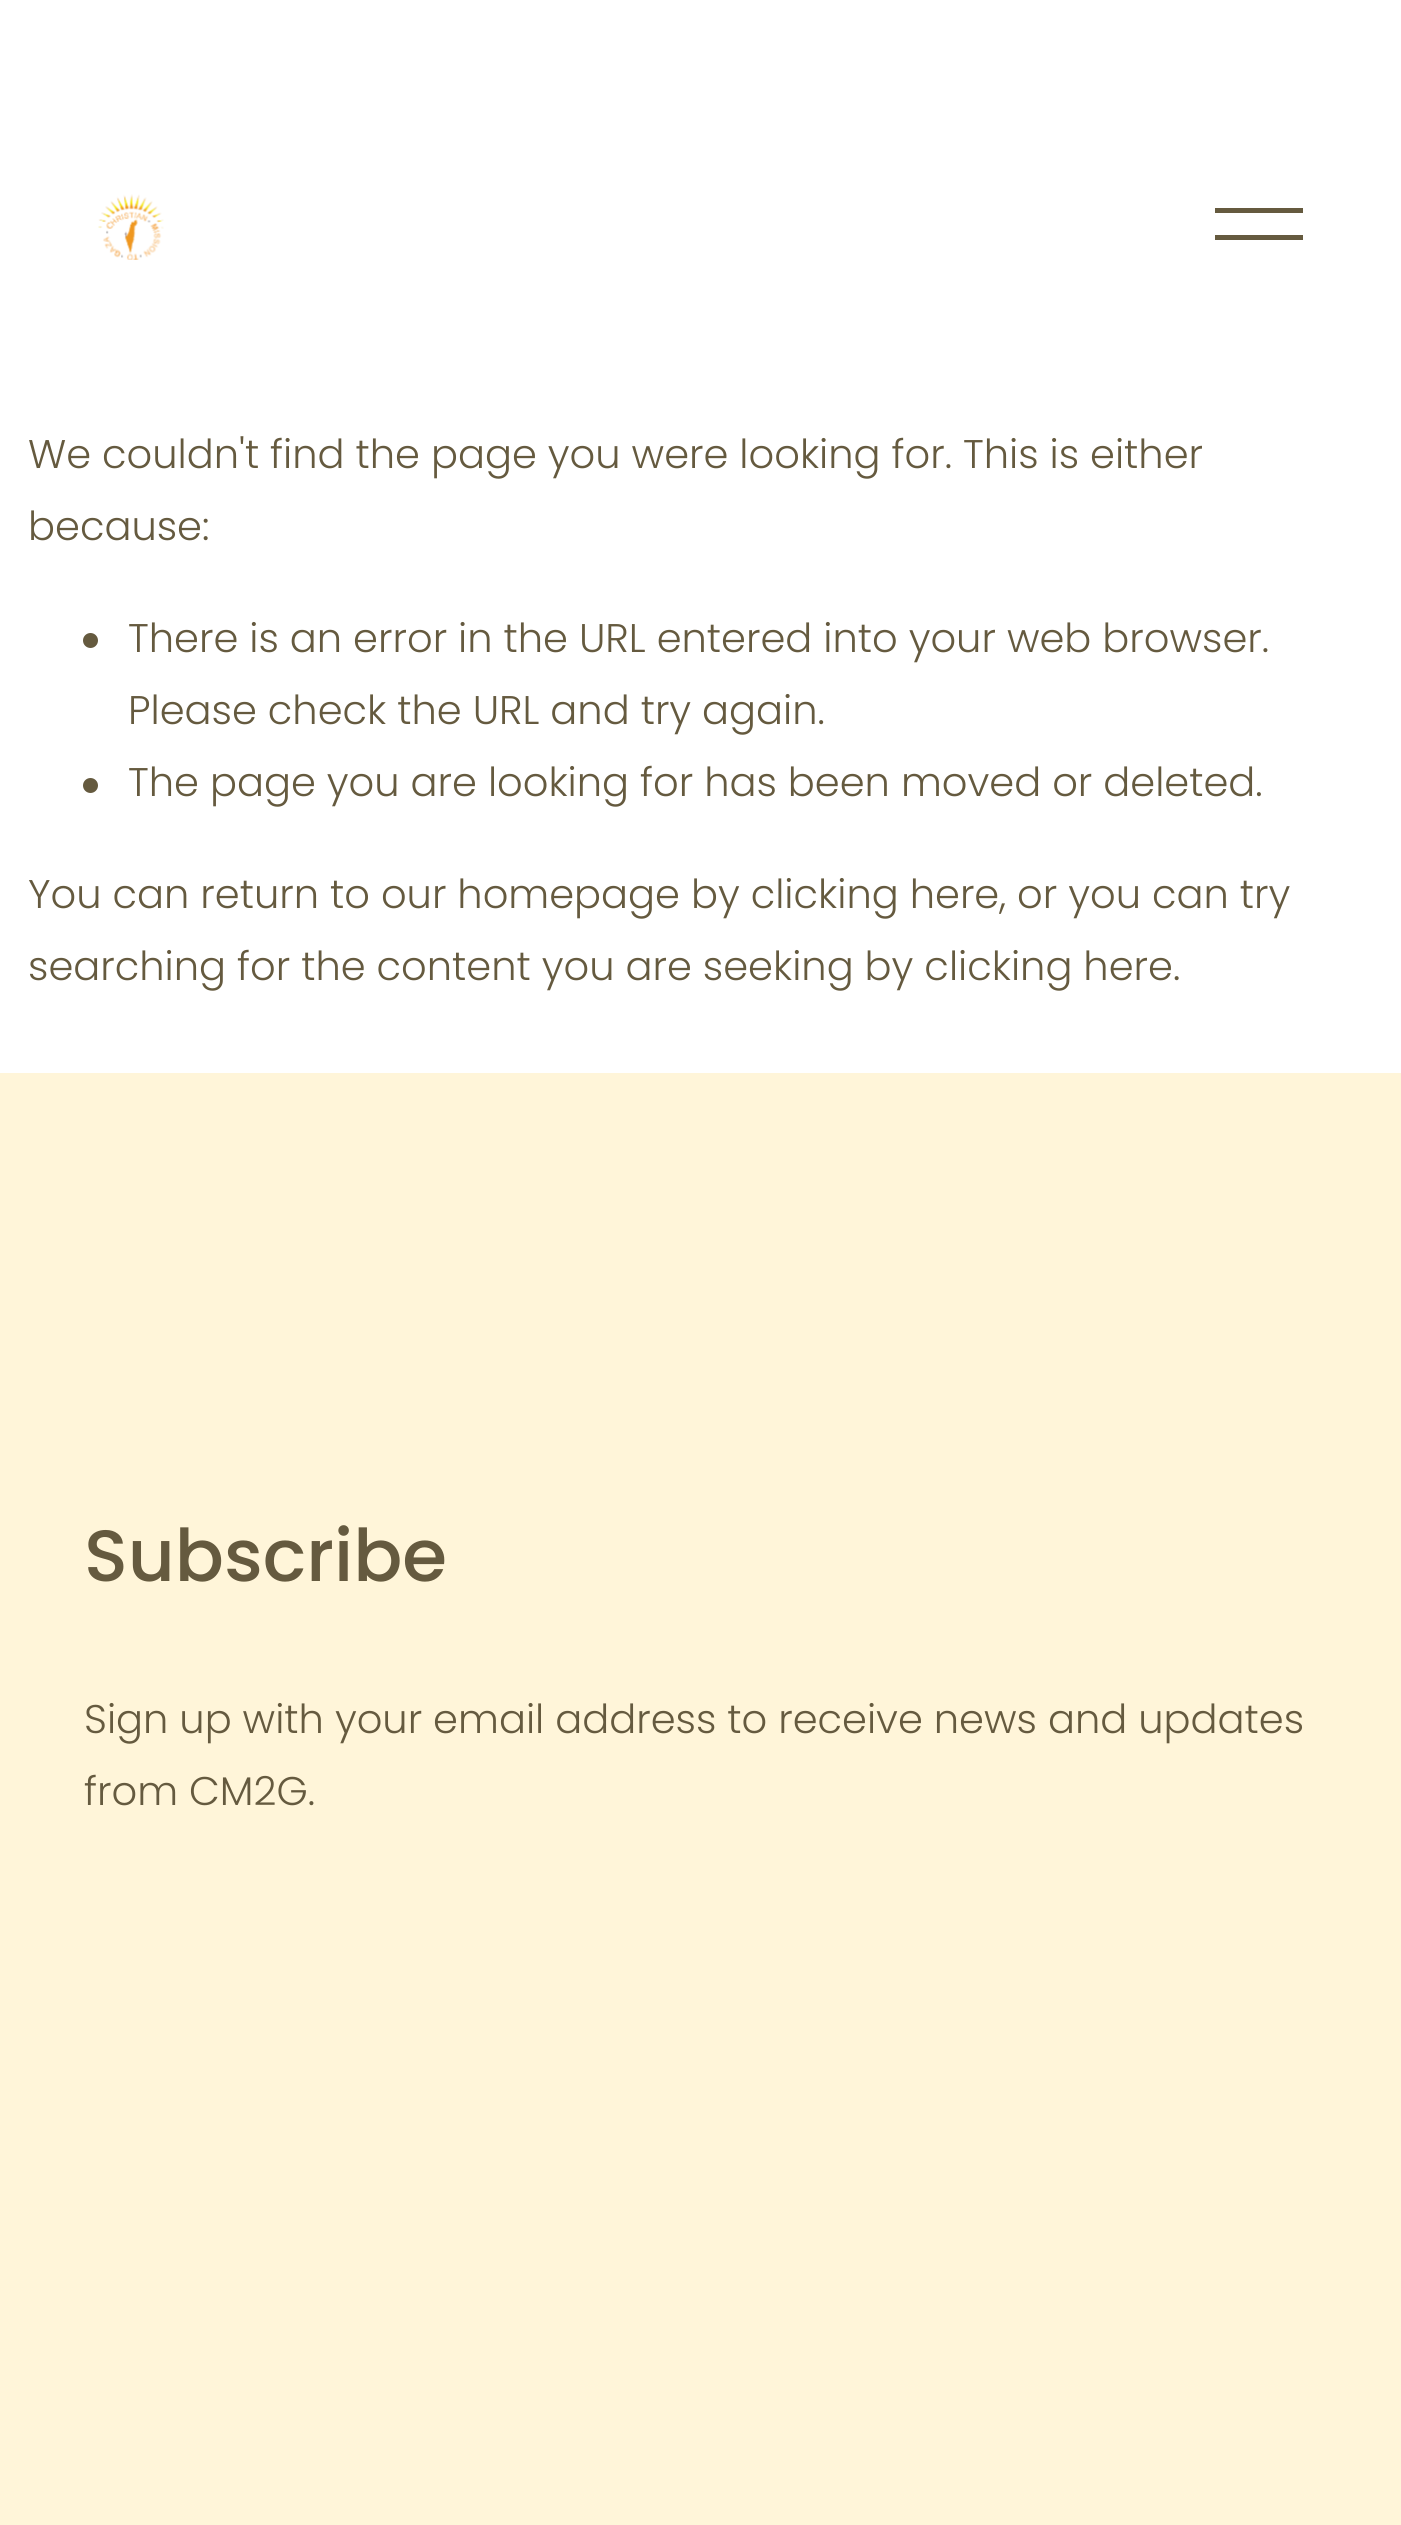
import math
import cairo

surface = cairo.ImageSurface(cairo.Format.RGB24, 1401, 2525)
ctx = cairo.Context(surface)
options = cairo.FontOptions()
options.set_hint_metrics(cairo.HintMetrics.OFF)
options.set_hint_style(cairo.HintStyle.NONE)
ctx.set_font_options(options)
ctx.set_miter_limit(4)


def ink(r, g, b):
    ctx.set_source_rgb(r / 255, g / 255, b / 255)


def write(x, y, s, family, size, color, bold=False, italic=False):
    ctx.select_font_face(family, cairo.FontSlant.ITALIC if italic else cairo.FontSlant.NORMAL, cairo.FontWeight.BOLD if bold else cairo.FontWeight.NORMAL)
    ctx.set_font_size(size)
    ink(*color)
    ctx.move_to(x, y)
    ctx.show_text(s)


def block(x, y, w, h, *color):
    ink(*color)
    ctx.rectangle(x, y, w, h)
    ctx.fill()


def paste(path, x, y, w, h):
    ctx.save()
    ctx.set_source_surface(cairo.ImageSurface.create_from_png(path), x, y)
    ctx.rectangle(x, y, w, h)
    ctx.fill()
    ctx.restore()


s1 = dict(family="Poppins Light", size=40, color=(101, 90, 63))
s2 = dict(family="Poppins Medium", size=72.5, color=(101, 90, 63))

ink(255, 255, 255)
ctx.paint()
paste("pic1.png", 98, 194, 66, 66)
block(1215, 208, 88, 5, 101, 90, 63)
block(1215, 235, 88, 5, 101, 90, 63)
write(28, 468, "We couldn't find the page you were looking for. This is either", **s1)
write(28, 540, "because:", **s1)
ctx.new_path()
ctx.arc(90.5, 640.5, 7.5, 0, 2 * math.pi)
ctx.fill()
write(128, 652, "There is an error in the URL entered into your web browser.", **s1)
write(128, 724, "Please check the URL and try again.", **s1)
ctx.new_path()
ctx.arc(90.5, 785.5, 7.5, 0, 2 * math.pi)
ctx.fill()
write(128, 796, "The page you are looking for has been moved or deleted.", **s1)
write(28, 908, "You can return to our homepage by clicking here, or you can try", **s1)
write(28, 980, "searching for the content you are seeking by clicking here.", **s1)
block(0, 1073, 1401, 1452, 255, 245, 217)
write(84, 1581, "Subscribe", **s2)
write(84, 1733, "Sign up with your email address to receive news and updates", **s1)
write(84, 1805, "from CM2G.", **s1)
surface.write_to_png("screenshot.png")
